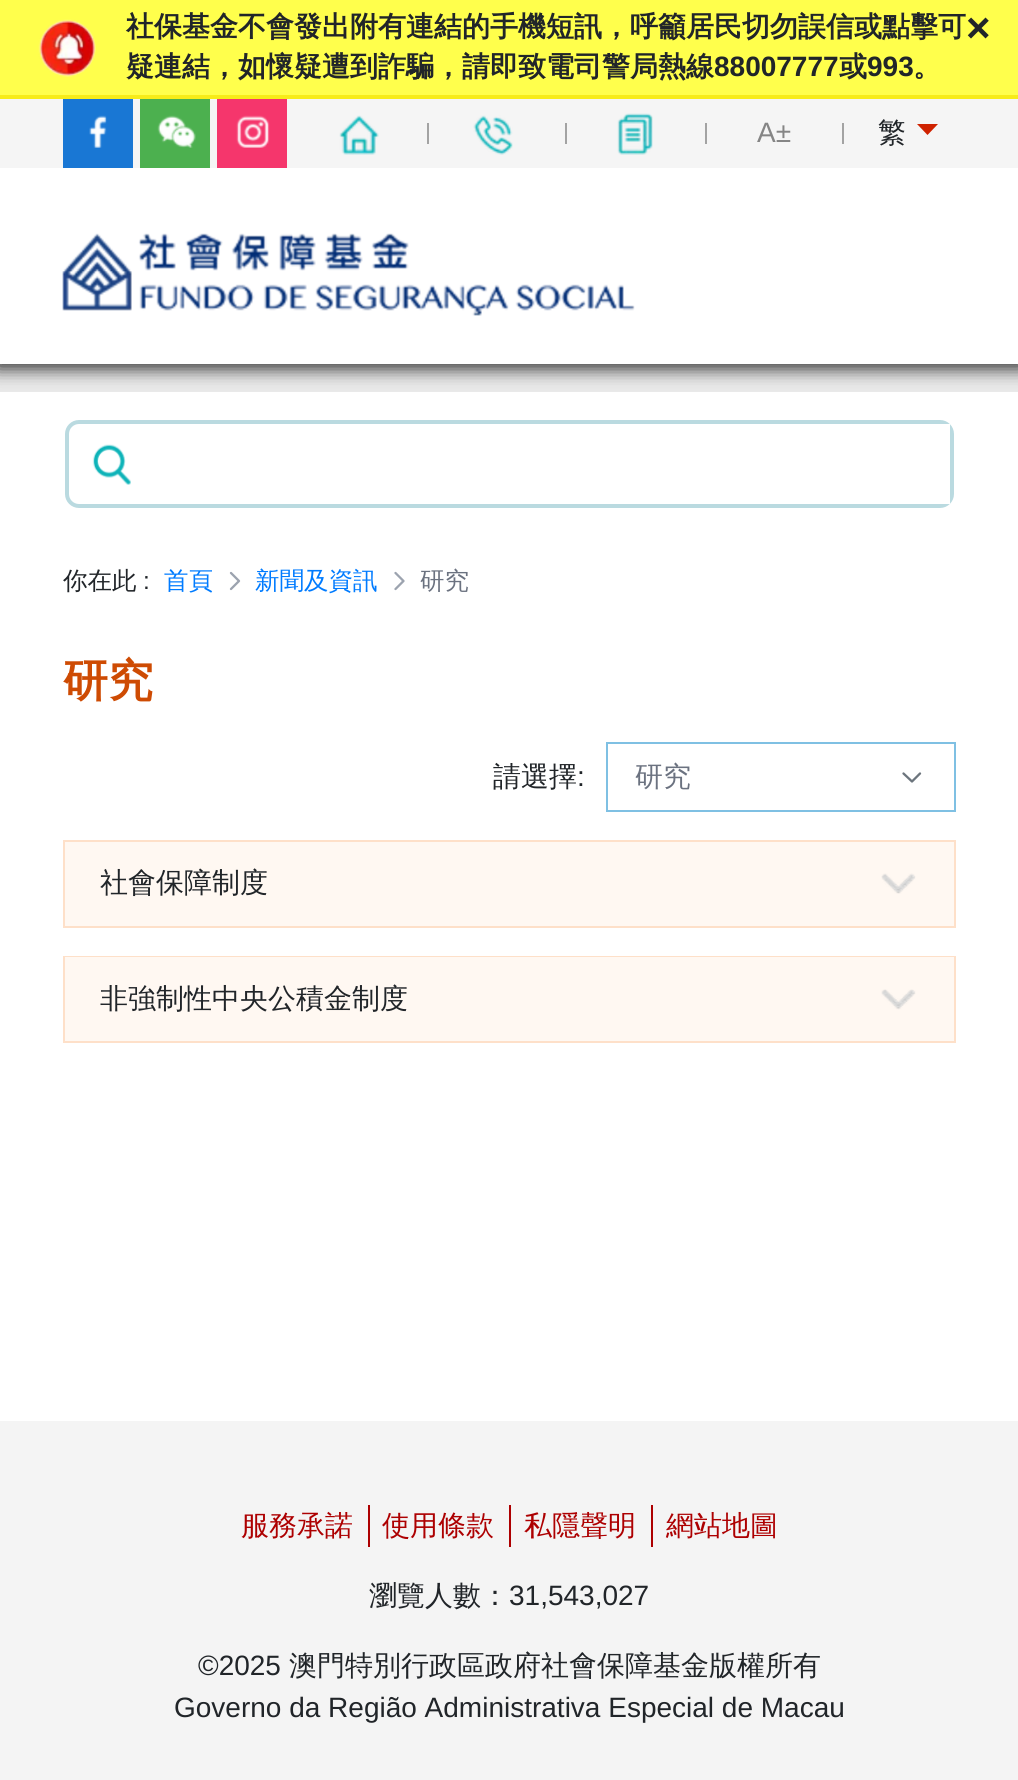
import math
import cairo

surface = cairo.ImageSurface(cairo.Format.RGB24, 1018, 1780)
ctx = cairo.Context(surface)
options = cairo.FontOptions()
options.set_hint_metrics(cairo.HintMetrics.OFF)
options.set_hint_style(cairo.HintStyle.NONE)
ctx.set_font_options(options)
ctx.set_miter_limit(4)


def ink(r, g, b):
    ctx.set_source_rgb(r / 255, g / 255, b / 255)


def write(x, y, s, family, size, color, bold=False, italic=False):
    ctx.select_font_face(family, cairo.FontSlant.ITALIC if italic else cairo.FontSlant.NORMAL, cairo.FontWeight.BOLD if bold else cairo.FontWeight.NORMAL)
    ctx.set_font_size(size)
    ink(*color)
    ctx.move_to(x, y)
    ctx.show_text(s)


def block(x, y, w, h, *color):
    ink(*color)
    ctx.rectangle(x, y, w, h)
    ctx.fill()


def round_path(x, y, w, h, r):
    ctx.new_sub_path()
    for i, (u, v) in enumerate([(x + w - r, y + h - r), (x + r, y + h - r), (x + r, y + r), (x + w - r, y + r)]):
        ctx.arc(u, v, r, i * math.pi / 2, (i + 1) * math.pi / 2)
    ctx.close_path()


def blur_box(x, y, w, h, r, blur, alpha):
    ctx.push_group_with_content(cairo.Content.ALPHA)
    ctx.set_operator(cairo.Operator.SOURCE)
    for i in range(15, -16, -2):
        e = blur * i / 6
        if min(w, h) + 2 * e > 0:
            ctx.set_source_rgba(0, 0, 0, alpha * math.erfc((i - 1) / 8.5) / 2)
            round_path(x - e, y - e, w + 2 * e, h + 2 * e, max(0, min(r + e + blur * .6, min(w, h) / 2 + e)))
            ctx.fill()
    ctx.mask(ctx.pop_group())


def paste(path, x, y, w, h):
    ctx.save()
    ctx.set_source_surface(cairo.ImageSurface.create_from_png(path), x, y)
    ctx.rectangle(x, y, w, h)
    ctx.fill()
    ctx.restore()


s1 = dict(family="WenQuanYi Zen Hei", size=28, color=(33, 37, 41), bold=True)
s2 = dict(family="Liberation Sans", size=28, color=(33, 37, 41), bold=True)
s3 = dict(family="Liberation Sans", size=42, color=(33, 37, 41), bold=True)
s4 = dict(family="Liberation Sans", size=28, color=(133, 133, 133))
s5 = dict(family="WenQuanYi Zen Hei Medium", size=28, color=(33, 37, 41))
s6 = dict(family="WenQuanYi Zen Hei Medium", size=24.5, color=(33, 37, 41))
s7 = dict(family="Liberation Sans", size=24.5, color=(33, 37, 41))
s8 = dict(family="WenQuanYi Zen Hei Medium", size=24.5, color=(0, 123, 255))
s9 = dict(family="WenQuanYi Zen Hei Medium", size=24.5, color=(107, 114, 128))
s10 = dict(family="WenQuanYi Zen Hei", size=45, color=(206, 75, 3), bold=True)
s11 = dict(family="Liberation Sans", size=28, color=(33, 37, 41))
s12 = dict(family="WenQuanYi Zen Hei Medium", size=28, color=(107, 114, 128))
s13 = dict(family="WenQuanYi Zen Hei Medium", size=28, color=(173, 0, 1))

ink(255, 255, 255)
ctx.paint()
block(0, 364, 1018, 28, 234, 234, 234)
ink(51, 51, 51)
blur_box(-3, -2, 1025, 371, 0, 9, 1)
block(0, 168, 1018, 196, 255, 255, 255)
block(0, 0, 1018, 95, 255, 255, 76)
block(0, 95, 1018, 4, 247, 236, 24)
paste("pic1.png", 38, 19, 58, 58)
write(126, 36, "社保基金不會發出附有連結的手機短訊，呼籲居民切勿誤信或點擊可", **s1)
write(126, 76, "疑連結，如懷疑遭到詐騙，請即致電司警局熱線", **s1)
write(714, 76, "88007777", **s2)
write(839, 76, "或", **s1)
write(867, 76, "993", **s2)
write(913, 76, "。", **s1)
write(966, 42, "×", **s3)
block(0, 99, 1018, 69, 245, 245, 245)
block(63, 99, 70, 69, 25, 119, 212)
paste("pic2.png", 89, 115, 18, 33)
block(140, 99, 70, 69, 76, 176, 79)
paste("pic3.png", 157, 115, 39, 33)
block(217, 99, 70, 69, 245, 54, 108)
paste("pic4.png", 236, 115, 34, 33)
paste("pic5.png", 339, 115, 40, 40)
block(427, 123, 2, 21, 163, 163, 163)
paste("pic6.png", 473, 115, 40, 40)
block(565, 123, 2, 21, 163, 163, 163)
paste("pic7.png", 617, 113, 36, 42)
block(705, 123, 2, 21, 163, 163, 163)
write(757, 142, "A±", **s4)
block(842, 123, 2, 21, 163, 163, 163)
write(878, 142, "繁", **s5)
ink(207, 34, 0)
ctx.new_path()
ctx.move_to(917, 124)
ctx.line_to(938, 124)
ctx.line_to(927.5, 135)
ctx.close_path()
ctx.fill()
paste("pic8.png", 62, 233, 573, 83)
round_path(67, 422, 885, 84, 12)
ink(186, 218, 224)
ctx.set_line_width(4)
ctx.stroke()
paste("pic9.png", 92, 444, 39, 41)
block(940, 424, 10, 80, 255, 255, 255)
write(63, 589, "你在此", **s6)
write(143, 589, ":", **s7)
write(164, 589, "首頁", **s8)
ctx.new_path()
ctx.move_to(231, 573)
ctx.line_to(239, 581)
ctx.line_to(231, 589)
ink(156, 163, 175)
ctx.set_line_width(2.3)
ctx.set_line_cap(cairo.LineCap.ROUND)
ctx.set_line_join(cairo.LineJoin.ROUND)
ctx.stroke()
write(255, 589, "新聞及資訊", **s8)
ctx.new_path()
ctx.move_to(395.5, 573)
ctx.line_to(403.5, 581)
ctx.line_to(395.5, 589)
ink(156, 163, 175)
ctx.stroke()
write(420, 589, "研究", **s9)
write(63, 696, "研究", **s10)
write(493, 786, "請選擇", **s5)
write(577, 786, ":", **s11)
ctx.rectangle(607, 743, 348, 68)
ink(127, 192, 227)
ctx.set_line_width(2)
ctx.set_line_cap(cairo.LineCap.BUTT)
ctx.set_line_join(cairo.LineJoin.MITER)
ctx.stroke()
write(635, 786, "研究", **s12)
ctx.new_path()
ctx.move_to(920, 773.5)
ctx.line_to(912, 781.5)
ctx.line_to(903.5, 773.5)
ink(108, 117, 125)
ctx.set_line_width(2.3)
ctx.set_line_cap(cairo.LineCap.ROUND)
ctx.set_line_join(cairo.LineJoin.ROUND)
ctx.stroke()
ctx.rectangle(64, 841, 891, 86)
ink(254, 224, 201)
ctx.set_line_width(2)
ctx.set_line_cap(cairo.LineCap.BUTT)
ctx.set_line_join(cairo.LineJoin.MITER)
ctx.stroke()
block(65, 842, 889, 84, 255, 248, 242)
write(100, 892, "社會保障制度", **s5)
paste("pic10.png", 881, 873, 35, 21)
ctx.rectangle(64, 957, 891, 85)
ink(254, 224, 201)
ctx.stroke()
block(65, 957, 889, 84, 255, 248, 242)
write(100, 1008, "非強制性中央公積金制度", **s5)
paste("pic11.png", 881, 989, 35, 21)
block(0, 1421, 1018, 359, 244, 244, 244)
block(368, 1505, 2, 42, 173, 0, 1)
write(241, 1535, "服務承諾", **s13)
block(509, 1505, 2, 42, 173, 0, 1)
write(382, 1535, "使用條款", **s13)
block(651, 1505, 2, 42, 173, 0, 1)
write(524, 1535, "私隱聲明", **s13)
write(666, 1535, "網站地圖", **s13)
write(369, 1605, "瀏覽人數：", **s5)
write(509, 1605, "31,543,027", **s11)
write(198, 1675, "©2025", **s11)
write(289, 1675, "澳門特別行政區政府社會保障基金版權所有", **s5)
write(174, 1717, "Governo da Região Administrativa Especial de Macau", **s11)
surface.write_to_png("screenshot.png")
